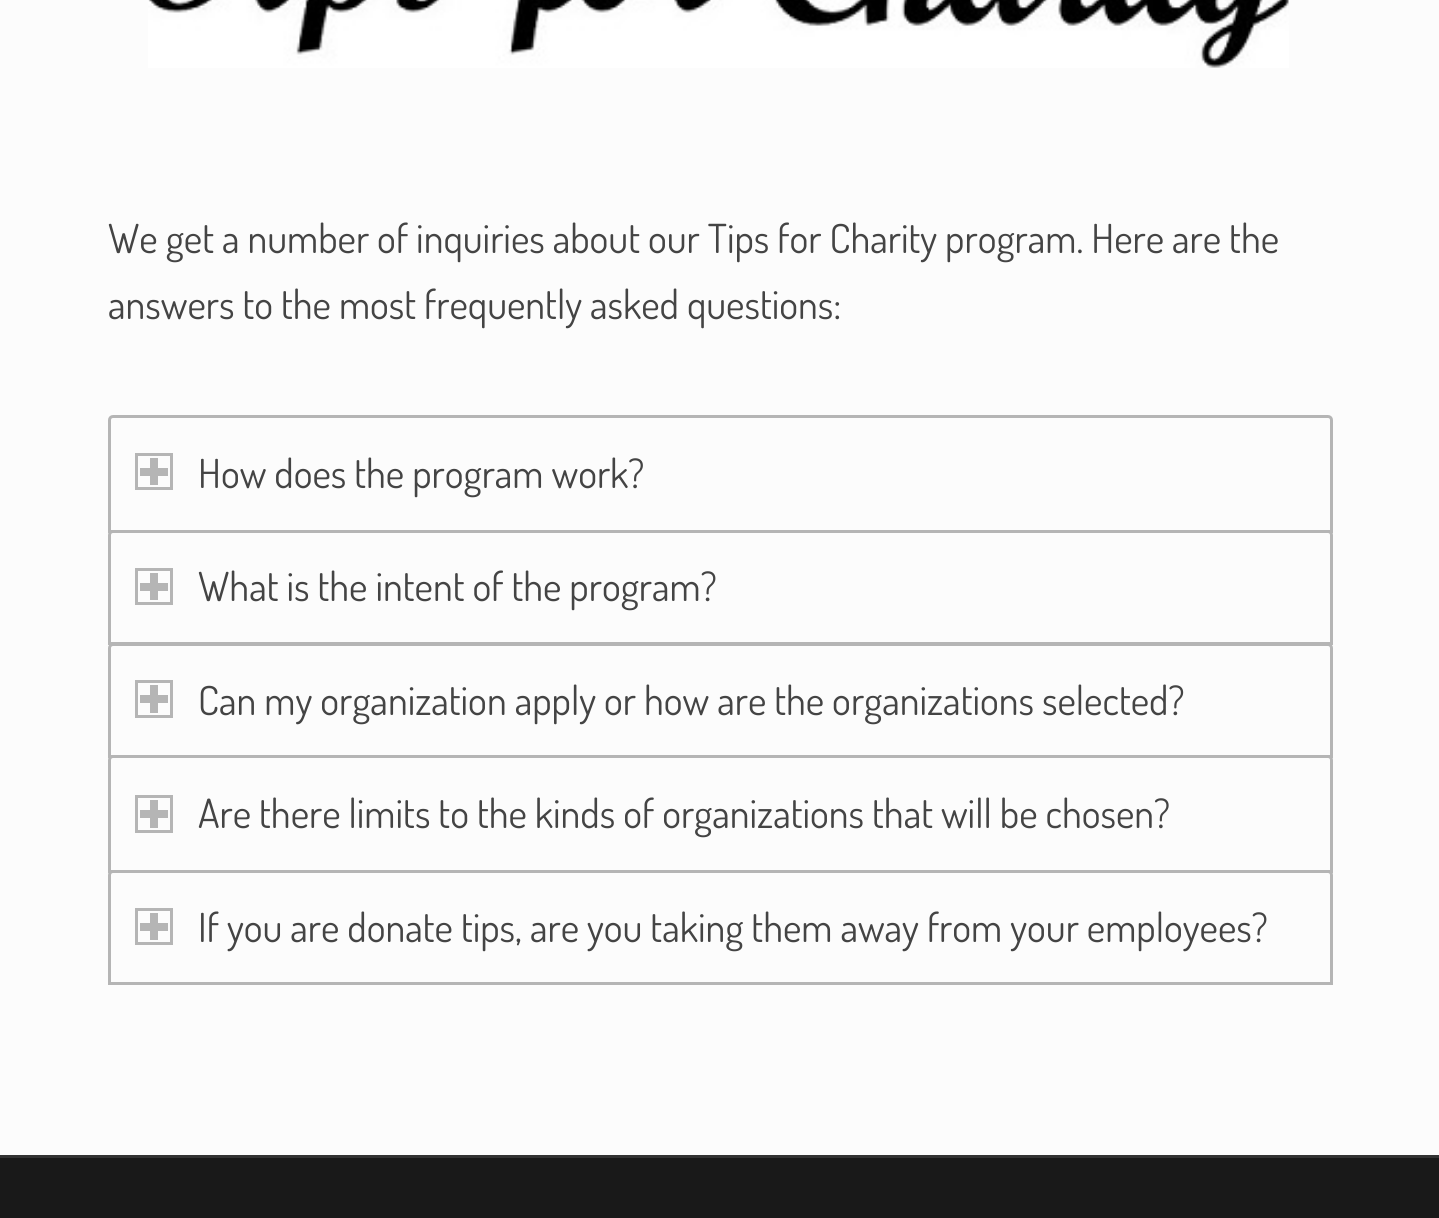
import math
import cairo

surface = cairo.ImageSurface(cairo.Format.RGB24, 1439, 1218)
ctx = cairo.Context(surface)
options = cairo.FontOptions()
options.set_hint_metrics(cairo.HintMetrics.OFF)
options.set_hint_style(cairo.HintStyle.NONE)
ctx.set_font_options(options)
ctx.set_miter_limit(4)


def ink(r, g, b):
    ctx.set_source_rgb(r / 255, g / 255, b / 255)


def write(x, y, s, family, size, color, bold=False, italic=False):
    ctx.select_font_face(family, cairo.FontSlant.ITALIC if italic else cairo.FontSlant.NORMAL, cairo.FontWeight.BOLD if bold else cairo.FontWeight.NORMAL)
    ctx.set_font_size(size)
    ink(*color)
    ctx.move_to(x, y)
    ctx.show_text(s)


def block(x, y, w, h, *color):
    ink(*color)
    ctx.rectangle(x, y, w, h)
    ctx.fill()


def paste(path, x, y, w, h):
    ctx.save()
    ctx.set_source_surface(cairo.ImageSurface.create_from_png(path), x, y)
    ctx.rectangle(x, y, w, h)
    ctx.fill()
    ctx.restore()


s1 = dict(family="Dosis", size=40, color=(68, 68, 68))

ink(252, 252, 252)
ctx.paint()
paste("pic1.png", 148, 0, 1141, 68)
write(108, 253, "We get a number of inquiries about our Tips for Charity program. Here are the", **s1)
write(108, 319, "answers to the most frequently asked questions:", **s1)
ctx.new_path()
ctx.move_to(113, 416.5)
ctx.line_to(1328, 416.5)
ctx.curve_to(1330, 416.5, 1331.5, 418, 1331.5, 420)
ctx.line_to(1331.5, 531.5)
ctx.line_to(109.5, 531.5)
ctx.line_to(109.5, 420)
ctx.curve_to(109.5, 418, 111, 416.5, 113, 416.5)
ctx.close_path()
ink(181, 181, 181)
ctx.set_line_width(3)
ctx.stroke()
ctx.rectangle(136.5, 454.5, 35, 34)
ctx.stroke()
block(150, 458, 8, 27, 181, 181, 181)
block(140, 468, 28, 8, 181, 181, 181)
write(198, 488, "How does the program work?", **s1)
ink(252, 252, 252)
ctx.new_path()
ctx.move_to(113, 531.5)
ctx.line_to(1328, 531.5)
ctx.curve_to(1330, 531.5, 1331.5, 533, 1331.5, 535)
ctx.line_to(1331.5, 643.5)
ctx.line_to(109.5, 643.5)
ctx.line_to(109.5, 535)
ctx.curve_to(109.5, 533, 111, 531.5, 113, 531.5)
ctx.close_path()
ctx.fill_preserve()
ink(181, 181, 181)
ctx.stroke()
ctx.rectangle(136.5, 569.5, 35, 34)
ctx.stroke()
block(150, 573, 8, 27, 181, 181, 181)
block(140, 583, 28, 8, 181, 181, 181)
write(198, 601, "What is the intent of the program?", **s1)
ink(252, 252, 252)
ctx.new_path()
ctx.move_to(113, 644.5)
ctx.line_to(1328, 644.5)
ctx.curve_to(1330, 644.5, 1331.5, 646, 1331.5, 648)
ctx.line_to(1331.5, 756.5)
ctx.line_to(109.5, 756.5)
ctx.line_to(109.5, 648)
ctx.curve_to(109.5, 646, 111, 644.5, 113, 644.5)
ctx.close_path()
ctx.fill_preserve()
ink(181, 181, 181)
ctx.stroke()
ctx.rectangle(136.5, 681.5, 35, 35)
ctx.stroke()
block(150, 685, 8, 28, 181, 181, 181)
block(140, 695, 28, 8, 181, 181, 181)
write(198, 715, "Can my organization apply or how are the organizations selected?", **s1)
ink(252, 252, 252)
ctx.new_path()
ctx.move_to(113, 756.5)
ctx.line_to(1328, 756.5)
ctx.curve_to(1330, 756.5, 1331.5, 758, 1331.5, 760)
ctx.line_to(1331.5, 871.5)
ctx.line_to(109.5, 871.5)
ctx.line_to(109.5, 760)
ctx.curve_to(109.5, 758, 111, 756.5, 113, 756.5)
ctx.close_path()
ctx.fill_preserve()
ink(181, 181, 181)
ctx.stroke()
ctx.rectangle(136.5, 796.5, 35, 35)
ctx.stroke()
block(150, 800, 8, 28, 181, 181, 181)
block(140, 810, 28, 8, 181, 181, 181)
write(198, 828, "Are there limits to the kinds of organizations that will be chosen?", **s1)
ink(252, 252, 252)
ctx.new_path()
ctx.move_to(113, 871.5)
ctx.line_to(1328, 871.5)
ctx.curve_to(1330, 871.5, 1331.5, 873, 1331.5, 875)
ctx.line_to(1331.5, 983.5)
ctx.line_to(109.5, 983.5)
ctx.line_to(109.5, 875)
ctx.curve_to(109.5, 873, 111, 871.5, 113, 871.5)
ctx.close_path()
ctx.fill_preserve()
ink(181, 181, 181)
ctx.stroke()
ctx.rectangle(136.5, 909.5, 35, 34)
ctx.stroke()
block(150, 913, 8, 27, 181, 181, 181)
block(140, 923, 28, 8, 181, 181, 181)
write(198, 942, "If you are donate tips, are you taking them away from your employees?", **s1)
block(0, 1158, 1439, 60, 25, 25, 25)
block(0, 1155, 1439, 3, 51, 51, 51)
surface.write_to_png("screenshot.png")
